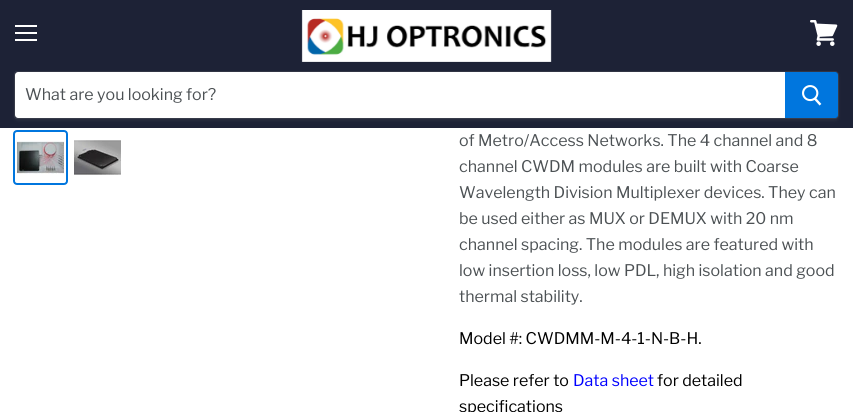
import math
import cairo

surface = cairo.ImageSurface(cairo.Format.RGB24, 853, 412)
ctx = cairo.Context(surface)
options = cairo.FontOptions()
options.set_hint_metrics(cairo.HintMetrics.OFF)
options.set_hint_style(cairo.HintStyle.NONE)
ctx.set_font_options(options)
ctx.set_miter_limit(4)


def ink(r, g, b):
    ctx.set_source_rgb(r / 255, g / 255, b / 255)


def write(x, y, s, family, size, color, bold=False, italic=False):
    ctx.select_font_face(family, cairo.FontSlant.ITALIC if italic else cairo.FontSlant.NORMAL, cairo.FontWeight.BOLD if bold else cairo.FontWeight.NORMAL)
    ctx.set_font_size(size)
    ink(*color)
    ctx.move_to(x, y)
    ctx.show_text(s)


def block(x, y, w, h, *color):
    ink(*color)
    ctx.rectangle(x, y, w, h)
    ctx.fill()


def round_path(x, y, w, h, r):
    ctx.new_sub_path()
    for i, (u, v) in enumerate([(x + w - r, y + h - r), (x + r, y + h - r), (x + r, y + r), (x + w - r, y + r)]):
        ctx.arc(u, v, r, i * math.pi / 2, (i + 1) * math.pi / 2)
    ctx.close_path()


def blur_box(x, y, w, h, r, blur, alpha):
    ctx.push_group_with_content(cairo.Content.ALPHA)
    ctx.set_operator(cairo.Operator.SOURCE)
    for i in range(15, -16, -2):
        e = blur * i / 6
        if min(w, h) + 2 * e > 0:
            ctx.set_source_rgba(0, 0, 0, alpha * math.erfc((i - 1) / 8.5) / 2)
            round_path(x - e, y - e, w + 2 * e, h + 2 * e, max(0, min(r + e + blur * .6, min(w, h) / 2 + e)))
            ctx.fill()
    ctx.mask(ctx.pop_group())


def paste(path, x, y, w, h):
    ctx.save()
    ctx.set_source_surface(cairo.ImageSurface.create_from_png(path), x, y)
    ctx.rectangle(x, y, w, h)
    ctx.fill()
    ctx.restore()


s1 = dict(family="Libre Franklin", size=16, color=(76, 81, 84))
s2 = dict(family="Libre Franklin", size=16, color=(0, 0, 0))
s3 = dict(family="Libre Franklin", size=16, color=(0, 0, 255))

ink(255, 255, 255)
ctx.paint()
block(0, 0, 853, 128, 29, 34, 54)
block(15, 25, 22, 2, 255, 255, 255)
block(15, 32, 22, 2, 255, 255, 255)
block(15, 39, 22, 2, 255, 255, 255)
paste("pic1.png", 810, 20, 28, 26)
paste("pic2.png", 301, 10, 251, 52)
ink(127, 127, 127)
blur_box(14, 73, 825, 48, 4, 1.5, 0.11)
ctx.new_path()
ctx.move_to(17, 71.5)
ctx.line_to(835, 71.5)
ctx.curve_to(837, 71.5, 838.5, 73, 838.5, 75)
ctx.line_to(838.5, 115)
ctx.curve_to(838.5, 117, 837, 118.5, 835, 118.5)
ctx.line_to(17, 118.5)
ctx.curve_to(15.5, 118.5, 14.5, 117.5, 14.5, 116)
ctx.line_to(14.5, 74)
ctx.curve_to(14.5, 72.5, 15.5, 71.5, 17, 71.5)
ctx.close_path()
ctx.set_source_rgba(0.498, 0.498, 0.498, 0.2)
ctx.set_line_width(1)
ctx.stroke()
ink(255, 255, 255)
ctx.new_path()
ctx.move_to(18, 72)
ctx.line_to(785, 72)
ctx.line_to(785, 118)
ctx.line_to(18, 118)
ctx.curve_to(16.5, 118, 15, 116.5, 15, 115)
ctx.line_to(15, 75)
ctx.curve_to(15, 73.5, 16.5, 72, 18, 72)
ctx.close_path()
ctx.fill()
write(25, 100, "What are you looking for?", **s1)
ink(0, 118, 222)
ctx.new_path()
ctx.move_to(785.5, 72.5)
ctx.line_to(835, 72.5)
ctx.curve_to(836.5, 72.5, 837.5, 73.5, 837.5, 75)
ctx.line_to(837.5, 115)
ctx.curve_to(837.5, 116.5, 836.5, 117.5, 835, 117.5)
ctx.line_to(785.5, 117.5)
ctx.close_path()
ctx.fill_preserve()
ctx.stroke()
paste("pic3.png", 802, 85, 20, 21)
round_path(14, 131, 53, 53, 3)
ctx.set_line_width(2)
ctx.stroke()
paste("pic4.png", 17, 141, 47, 33)
paste("pic5.png", 74, 140, 47, 35)
write(459, 146, "of Metro/Access Networks. The 4 channel and 8", **s1)
write(459, 172, "channel CWDM modules are built with Coarse", **s1)
write(459, 198, "Wavelength Division Multiplexer devices. They can", **s1)
write(459, 224, "be used either as MUX or DEMUX with 20 nm", **s1)
write(459, 250, "channel spacing. The modules are featured with", **s1)
write(459, 276, "low insertion loss, low PDL, high isolation and good", **s1)
write(459, 302, "thermal stability.", **s1)
write(459, 344, "Model #: CWDMM-M-4-1-N-B-H.", **s2)
write(459, 386, "Please refer to", **s2)
write(573, 386, "Data sheet", **s3)
write(657, 386, "for detailed", **s2)
write(459, 412, "specifications", **s2)
surface.write_to_png("screenshot.png")
